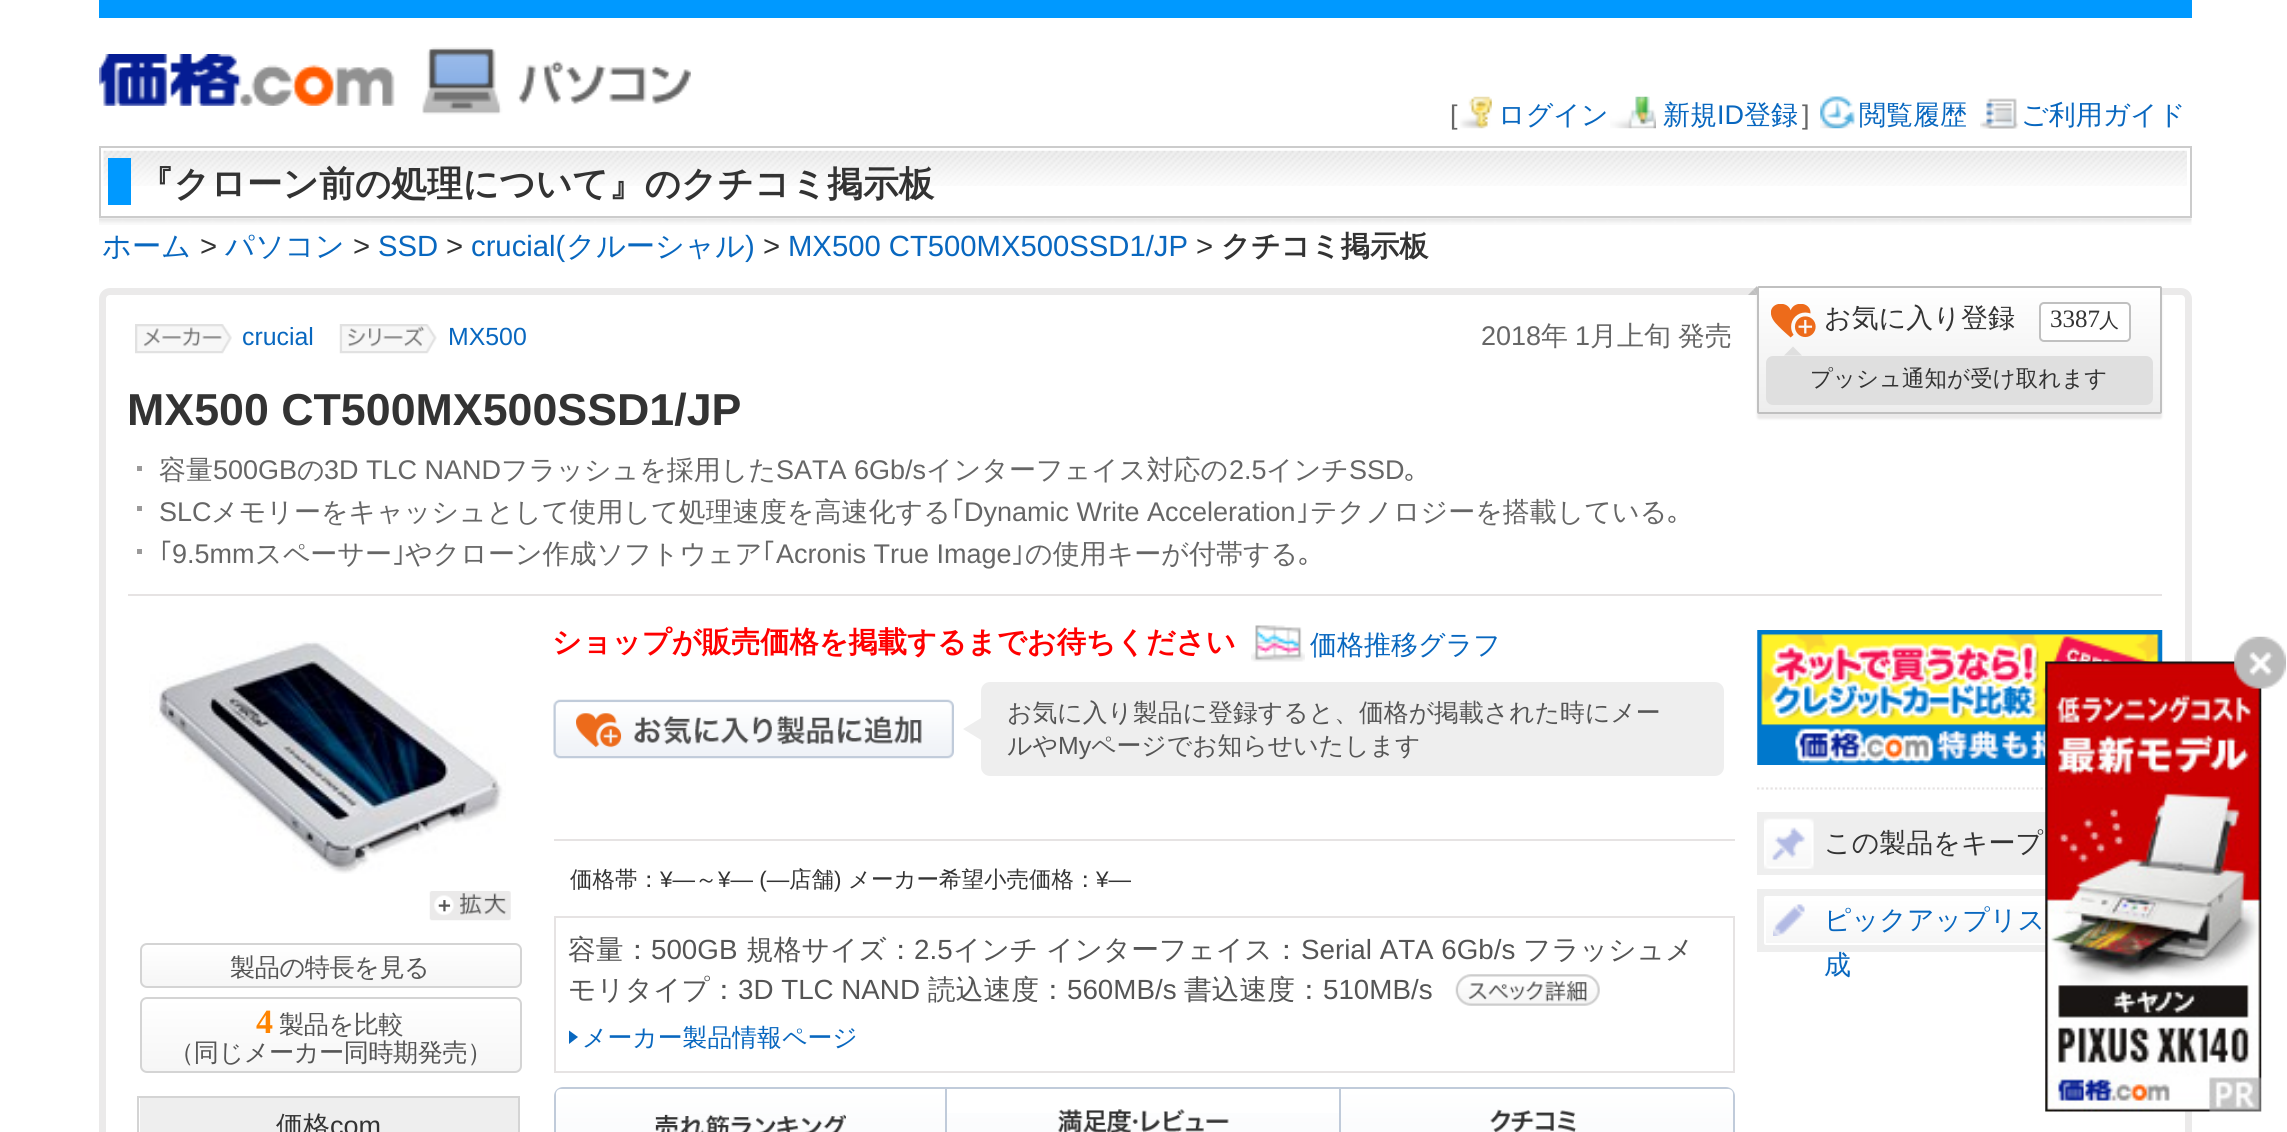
import math
import cairo

surface = cairo.ImageSurface(cairo.Format.RGB24, 2287, 1132)
ctx = cairo.Context(surface)
options = cairo.FontOptions()
options.set_hint_metrics(cairo.HintMetrics.OFF)
options.set_hint_style(cairo.HintStyle.NONE)
ctx.set_font_options(options)
ctx.set_miter_limit(4)


def ink(r, g, b):
    ctx.set_source_rgb(r / 255, g / 255, b / 255)


def write(x, y, s, family, size, color, bold=False, italic=False):
    ctx.select_font_face(family, cairo.FontSlant.ITALIC if italic else cairo.FontSlant.NORMAL, cairo.FontWeight.BOLD if bold else cairo.FontWeight.NORMAL)
    ctx.set_font_size(size)
    ink(*color)
    ctx.move_to(x, y)
    ctx.show_text(s)


def write_spaced(x, y, s, letter, word):
    ctx.move_to(x, y)
    for ch in s:
        ctx.show_text(ch)
        ctx.rel_move_to(letter + word * (ch == ' '), 0)


def block(x, y, w, h, *color):
    ink(*color)
    ctx.rectangle(x, y, w, h)
    ctx.fill()


def round_path(x, y, w, h, r):
    ctx.new_sub_path()
    for i, (u, v) in enumerate([(x + w - r, y + h - r), (x + r, y + h - r), (x + r, y + r), (x + w - r, y + r)]):
        ctx.arc(u, v, r, i * math.pi / 2, (i + 1) * math.pi / 2)
    ctx.close_path()


def blur_box(x, y, w, h, r, blur, alpha):
    ctx.push_group_with_content(cairo.Content.ALPHA)
    ctx.set_operator(cairo.Operator.SOURCE)
    for i in range(15, -16, -2):
        e = blur * i / 6
        if min(w, h) + 2 * e > 0:
            ctx.set_source_rgba(0, 0, 0, alpha * math.erfc((i - 1) / 8.5) / 2)
            round_path(x - e, y - e, w + 2 * e, h + 2 * e, max(0, min(r + e + blur * .6, min(w, h) / 2 + e)))
            ctx.fill()
    ctx.mask(ctx.pop_group())


def paste(path, x, y, w, h):
    ctx.save()
    ctx.set_source_surface(cairo.ImageSurface.create_from_png(path), x, y)
    ctx.rectangle(x, y, w, h)
    ctx.fill()
    ctx.restore()


s1 = dict(family="Liberation Sans", size=27, color=(102, 102, 102))
s2 = dict(family="WenQuanYi Zen Hei Medium", size=27, color=(8, 103, 191))
s3 = dict(family="Liberation Sans", size=27, color=(8, 103, 191))
s4 = dict(family="WenQuanYi Zen Hei", size=35.7, color=(51, 51, 51), bold=True)
s5 = dict(family="WenQuanYi Zen Hei Medium", size=29.25, color=(8, 103, 191))
s6 = dict(family="Liberation Sans", size=29.25, color=(51, 51, 51))
s7 = dict(family="Liberation Sans", size=29.25, color=(8, 103, 191))
s8 = dict(family="WenQuanYi Zen Hei", size=29.25, color=(51, 51, 51), bold=True)
s9 = dict(family="Liberation Sans", size=24.85, color=(8, 103, 191))
s10 = dict(family="WenQuanYi Zen Hei Medium", size=27, color=(102, 102, 102))
s11 = dict(family="WenQuanYi Zen Hei Medium", size=27, color=(51, 51, 51))
s12 = dict(family="Liberation Serif", size=25, color=(51, 51, 51))
s13 = dict(family="WenQuanYi Zen Hei Medium", size=20, color=(51, 51, 51))
s14 = dict(family="WenQuanYi Zen Hei Medium", size=22.5, color=(51, 51, 51))
s15 = dict(family="Liberation Sans", size=44.75, color=(51, 51, 51), bold=True)
s16 = dict(family="IPAPGothic", size=27, color=(102, 102, 102))
s17 = dict(family="WenQuanYi Zen Hei", size=29.25, color=(255, 0, 0), bold=True)
s18 = dict(family="WenQuanYi Zen Hei Medium", size=24.85, color=(85, 85, 85))
s19 = dict(family="Liberation Sans", size=24.85, color=(85, 85, 85))
s20 = dict(family="Liberation Sans", size=22.5, color=(51, 51, 51))
s21 = dict(family="WenQuanYi Zen Hei Medium", size=27.75, color=(85, 85, 85))
s22 = dict(family="Liberation Sans", size=27.75, color=(85, 85, 85))
s23 = dict(family="WenQuanYi Zen Hei Medium", size=24.85, color=(8, 103, 191))
s24 = dict(family="Liberation Sans", size=27, color=(51, 51, 51))

ink(255, 255, 255)
ctx.paint()
block(99, 0, 2093, 18, 0, 153, 255)
paste("pic1.png", 99, 54, 296, 52)
paste("pic2.png", 422, 47, 269, 68)
write(1450, 124, "[", **s1)
paste("pic3.png", 1460, 96, 32, 33)
write(1498, 124, "ログイン", **s2)
paste("pic4.png", 1610, 96, 46, 33)
write(1663, 124, "新規", **s2)
write(1717, 124, "ID", **s3)
write(1744, 124, "登録", **s2)
write(1802, 124, "]", **s1)
paste("pic5.png", 1820, 96, 35, 33)
write(1859, 124, "閲覧履歴", **s2)
paste("pic6.png", 1980, 98, 39, 31)
write(2021, 124, "ご利用ガイド", **s2)
paste("pic7.png", 99, 218, 2093, 7)
ctx.rectangle(100, 147, 2091, 70)
ink(204, 204, 204)
ctx.stroke()
paste("pic8.png", 103, 150, 2084, 36)
block(108, 158, 23, 47, 0, 153, 255)
write(138, 196, "『クローン前の処理について』のクチコミ掲示板", **s4)
write(102, 256, "ホーム", **s5)
write(200, 256, ">", **s6)
write(225, 256, "パソコン", **s5)
write(353, 256, ">", **s6)
write(378, 256, "SSD", **s7)
write(446, 256, ">", **s6)
write(471, 256, "crucial(", **s7)
write(566, 256, "クルーシャル", **s5)
write(745, 256, ")", **s7)
write(763, 256, ">", **s6)
write(788, 256, "MX500 CT500MX500SSD1/JP", **s7)
write(1196, 256, ">", **s6)
write(1221, 256, "クチコミ掲示板", **s8)
round_path(102.5, 291.5, 2086, 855, 7.5)
ink(235, 234, 234)
ctx.set_line_width(7)
ctx.stroke()
paste("pic9.png", 135, 324, 97, 30)
write(242, 345, "crucial", **s9)
paste("pic10.png", 339, 324, 98, 30)
write(448, 345, "MX500", **s9)
write(1481, 345, "2018", **s1)
write(1541, 345, "年", **s10)
write(1575, 345, "1", **s1)
ctx.select_font_face("WenQuanYi Zen Hei Medium")
write_spaced(1590, 345, "月上旬 発売", 0, -1)
ink(235, 234, 234)
blur_box(1757, 290, 405, 129, 2, 1, 1)
ink(192, 192, 192)
ctx.new_path()
ctx.move_to(1757, 286)
ctx.line_to(1757, 295)
ctx.line_to(1753, 290)
ctx.close_path()
ctx.fill()
ctx.new_path()
ctx.move_to(1757, 295)
ctx.line_to(1748, 295)
ctx.line_to(1753, 290)
ctx.close_path()
ctx.fill()
gradient = cairo.LinearGradient(1960, 288, 1960, 412)
gradient.add_color_stop_rgba(0, 1, 1, 1, 1)
gradient.add_color_stop_rgba(1, 0.929, 0.929, 0.929, 1)
ctx.set_source(gradient)
ctx.rectangle(1759, 288, 401, 124)
ctx.fill()
round_path(1758, 287, 403, 126, 1)
ink(192, 192, 192)
ctx.set_line_width(2)
ctx.stroke()
paste("pic11.png", 1771, 304, 45, 34)
write(1824, 327, "お気に入り登録", **s11)
ink(255, 255, 255)
round_path(2040, 303, 90, 38, 4)
ctx.fill_preserve()
ink(192, 192, 192)
ctx.stroke()
write(2050, 327, "3387", **s12)
write(2099, 327, "人", **s13)
ink(223, 223, 223)
round_path(1766, 356, 387, 49, 7)
ctx.fill()
ctx.new_path()
ctx.move_to(1802, 355.5)
ctx.line_to(1784, 355.5)
ctx.line_to(1793, 346.5)
ctx.close_path()
ctx.fill()
write(1810, 386, "プッシュ通知が受け取れます", **s14)
block(128, 594, 2034, 2, 230, 227, 227)
write(127, 425, "MX500 CT500MX500SSD1/JP", **s15)
block(137, 466, 5, 5, 155, 154, 154)
write(159, 479, "容量", **s10)
write(213, 479, "500GB", **s1)
write(297, 479, "の", **s10)
write(324, 479, "3D TLC NAND", **s1)
write(501, 479, "フラッシュを採用した", **s10)
write(776, 479, "SATA 6Gb/s", **s1)
write(926, 479, "インターフェイス対応の", **s10)
write(1229, 479, "2.5", **s1)
write(1266, 479, "インチ", **s10)
write(1349, 479, "SSD", **s1)
write(1404, 479, "｡", **s16)
block(137, 506, 5, 5, 155, 154, 154)
write(159, 521, "SLC", **s1)
write(211, 521, "メモリーをキャッシュとして使用して処理速度を高速化する", **s10)
write(951, 521, "｢", **s16)
write(964, 521, "Dynamic Write Acceleration", **s1)
write(1296, 521, "｣", **s16)
write(1310, 521, "テクノロジーを搭載している", **s10)
write(1667, 521, "｡", **s16)
block(137, 549, 5, 5, 155, 154, 154)
write(159, 563, "｢", **s16)
write(172, 563, "9.5mm", **s1)
write(255, 563, "スペーサー", **s10)
write(392, 563, "｣", **s16)
write(405, 563, "やクローン作成ソフトウェア", **s10)
write(762, 563, "｢", **s16)
write(776, 563, "Acronis True Image", **s1)
write(1011, 563, "｣", **s16)
write(1025, 563, "の使用キーが付帯する", **s10)
write(1298, 563, "｡", **s16)
write(552, 652, "ショップが販売価格を掲載するまでお待ちください", **s17)
paste("pic12.png", 1251, 625, 54, 37)
write(1310, 654, "価格推移グラフ", **s2)
paste("pic13.png", 553, 699, 401, 60)
ink(238, 238, 238)
round_path(981, 682, 743, 94, 9)
ctx.fill()
ctx.new_path()
ctx.move_to(981, 718)
ctx.line_to(981, 740)
ctx.line_to(963, 729)
ctx.close_path()
ctx.fill()
write(1007, 721, "お気に入り製品に登録すると、価格が掲載された時にメー", **s18)
write(1007, 754, "ルや", **s18)
write(1058, 754, "My", **s19)
write(1091, 754, "ページでお知らせいたします", **s18)
block(554, 839, 1181, 2, 230, 227, 227)
write(570, 887, "価格帯：", **s14)
write(660, 887, "¥―", **s20)
write(695, 887, "～", **s14)
write(718, 887, "¥― (―", **s20)
write(789, 887, "店舗", **s14)
write(834, 887, ")", **s20)
write(848, 887, "メーカー希望小売価格：", **s14)
write(1096, 887, "¥―", **s20)
ctx.rectangle(555, 917, 1179, 155)
ink(230, 227, 227)
ctx.stroke()
write(568, 959, "容量：", **s21)
write(651, 959, "500GB", **s22)
write(746, 959, "規格サイズ：", **s21)
write(914, 959, "2.5", **s22)
write(953, 959, "インチ", **s21)
write(1046, 959, "インターフェイス：", **s21)
write(1301, 959, "Serial ATA 6Gb/s", **s22)
write(1523, 959, "フラッシュメ", **s21)
write(568, 999, "モリタイプ：", **s21)
write(738, 999, "3D TLC NAND", **s22)
write(928, 999, "読込速度：", **s21)
write(1067, 999, "560MB/s", **s22)
write(1184, 999, "書込速度：", **s21)
write(1323, 999, "510MB/s", **s22)
paste("pic14.png", 1455, 974, 145, 32)
ink(8, 103, 191)
ctx.new_path()
ctx.move_to(569, 1044)
ctx.line_to(569, 1030.5)
ctx.line_to(578, 1037)
ctx.close_path()
ctx.fill()
write(582, 1046, "メーカー製品情報ページ", **s23)
round_path(555, 1088, 1179, 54, 8)
ink(192, 203, 218)
ctx.stroke()
gradient = cairo.LinearGradient(750, 1089, 750, 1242)
gradient.add_color_stop_rgba(0, 1, 1, 1, 1)
gradient.add_color_stop_rgba(1, 0.937, 0.949, 0.969, 1)
ctx.set_source(gradient)
ctx.new_path()
ctx.move_to(561, 1089)
ctx.line_to(947, 1089)
ctx.line_to(947, 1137)
ctx.line_to(561, 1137)
ctx.curve_to(558, 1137, 556, 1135, 556, 1132)
ctx.line_to(556, 1094)
ctx.curve_to(556, 1091, 558, 1089, 561, 1089)
ctx.close_path()
ctx.fill()
block(945, 1089, 2, 43, 192, 203, 218)
paste("pic15.png", 655, 1114, 191, 18)
gradient = cairo.LinearGradient(1143, 1089, 1143, 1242)
gradient.add_color_stop_rgba(0, 1, 1, 1, 1)
gradient.add_color_stop_rgba(1, 0.937, 0.949, 0.969, 1)
ctx.set_source(gradient)
ctx.rectangle(947, 1113, 392, 19)
ctx.fill()
block(1339, 1089, 2, 43, 192, 203, 218)
paste("pic16.png", 1057, 1109, 172, 23)
gradient = cairo.LinearGradient(1537, 1089, 1537, 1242)
gradient.add_color_stop_rgba(0, 1, 1, 1, 1)
gradient.add_color_stop_rgba(1, 0.937, 0.949, 0.969, 1)
ctx.set_source(gradient)
ctx.new_path()
ctx.move_to(1341, 1089)
ctx.line_to(1728, 1089)
ctx.curve_to(1731, 1089, 1733, 1091, 1733, 1094)
ctx.line_to(1733, 1132)
ctx.curve_to(1733, 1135, 1731, 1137, 1728, 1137)
ctx.line_to(1341, 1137)
ctx.close_path()
ctx.fill()
paste("pic17.png", 1490, 1109, 87, 23)
paste("pic18.png", 1757, 630, 406, 135)
ctx.new_path()
ctx.move_to(1757, 788.5)
ctx.line_to(2162, 788.5)
ink(230, 227, 227)
ctx.set_line_width(2.2)
ctx.set_dash([2.25, 2.25])
ctx.stroke()
block(1757, 812, 289, 63, 238, 238, 238)
paste("pic19.png", 1764, 818, 50, 51)
write(1824, 852, "この製品をキープ", **s11)
block(1757, 889, 289, 63, 238, 238, 238)
gradient = cairo.LinearGradient(1960, 898, 1960, 943)
gradient.add_color_stop_rgba(0, 1, 1, 1, 1)
gradient.add_color_stop_rgba(1, 0.965, 0.965, 0.965, 1)
ctx.set_source(gradient)
ctx.rectangle(1766, 898, 280, 45)
ctx.fill()
round_path(1765, 897, 390, 47, 1)
ink(255, 255, 255)
ctx.set_line_width(2)
ctx.set_dash([])
ctx.stroke()
paste("pic20.png", 1773, 904, 32, 32)
write(1824, 929, "ピックアップリス", **s2)
write(1824, 974, "成", **s2)
paste("pic21.png", 149, 641, 357, 233)
paste("pic22.png", 429, 891, 82, 30)
ctx.save()
round_path(140, 943, 382, 45, 7)
ctx.clip()
gradient = cairo.LinearGradient(331, 945, 331, 986)
gradient.add_color_stop_rgba(0, 1, 1, 1, 1)
gradient.add_color_stop_rgba(1, 0.965, 0.965, 0.965, 1)
ctx.set_source(gradient)
ctx.rectangle(140, 945, 382, 41)
ctx.fill()
ctx.restore()
round_path(141, 944, 380, 43, 6)
ink(212, 212, 212)
ctx.stroke()
ctx.set_font_size(25.2)
ink(85, 85, 85)
write_spaced(230, 976, "製品の特長を見る", -0.5, 0)
ctx.save()
round_path(140, 997, 382, 76, 7)
ctx.clip()
gradient = cairo.LinearGradient(331, 999, 331, 1071)
gradient.add_color_stop_rgba(0, 1, 1, 1, 1)
gradient.add_color_stop_rgba(1, 0.965, 0.965, 0.965, 1)
ctx.set_source(gradient)
ctx.rectangle(140, 999, 382, 72)
ctx.fill()
ctx.restore()
round_path(141, 998, 380, 74, 6)
ink(212, 212, 212)
ctx.stroke()
ctx.select_font_face("Liberation Serif", cairo.FontSlant.NORMAL, cairo.FontWeight.BOLD)
ctx.set_font_size(34)
ink(255, 132, 0)
write_spaced(256, 1033, "4", -0.5, 0)
ctx.select_font_face("WenQuanYi Zen Hei Medium")
ctx.set_font_size(25.2)
ink(85, 85, 85)
write_spaced(279, 1033, "製品を比較", -0.5, 0)
write_spaced(169, 1061, "（同じメーカー同時期発売）", -0.5, 0)
ctx.rectangle(138, 1097, 381, 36)
ink(212, 212, 212)
ctx.stroke()
block(140, 1098, 378, 34, 238, 238, 238)
write(276, 1135, "価格", **s11)
write(330, 1135, "com", **s24)
paste("pic24.png", 2045, 661, 217, 451)
paste("pic23.png", 2234, 636, 52, 53)
surface.write_to_png("screenshot.png")
